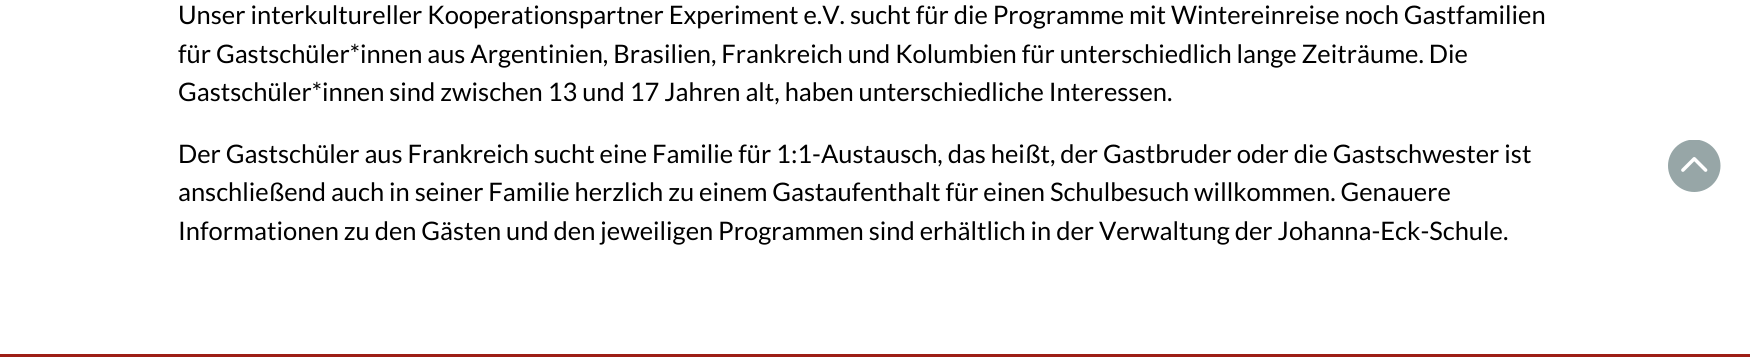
import math
import cairo

surface = cairo.ImageSurface(cairo.Format.RGB24, 1750, 357)
ctx = cairo.Context(surface)
options = cairo.FontOptions()
options.set_hint_metrics(cairo.HintMetrics.OFF)
options.set_hint_style(cairo.HintStyle.NONE)
ctx.set_font_options(options)
ctx.set_miter_limit(4)


def ink(r, g, b):
    ctx.set_source_rgb(r / 255, g / 255, b / 255)


def write(x, y, s, family, size, color, bold=False, italic=False):
    ctx.select_font_face(family, cairo.FontSlant.ITALIC if italic else cairo.FontSlant.NORMAL, cairo.FontWeight.BOLD if bold else cairo.FontWeight.NORMAL)
    ctx.set_font_size(size)
    ink(*color)
    ctx.move_to(x, y)
    ctx.show_text(s)


def block(x, y, w, h, *color):
    ink(*color)
    ctx.rectangle(x, y, w, h)
    ctx.fill()


def paste(path, x, y, w, h):
    ctx.save()
    ctx.set_source_surface(cairo.ImageSurface.create_from_png(path), x, y)
    ctx.rectangle(x, y, w, h)
    ctx.fill()
    ctx.restore()


s1 = dict(family="Lato", size=25.5, color=(0, 0, 0))

ink(157, 30, 21)
ctx.paint()
block(0, 0, 1750, 354, 255, 255, 255)
write(178, 24, "Unser interkultureller Kooperationspartner Experiment e.V. sucht für die Programme mit Wintereinreise noch Gastfamilien", **s1)
write(178, 63, "für Gastschüler*innen aus Argentinien, Brasilien, Frankreich und Kolumbien für unterschiedlich lange Zeiträume. Die", **s1)
write(178, 101, "Gastschüler*innen sind zwischen 13 und 17 Jahren alt, haben unterschiedliche Interessen.", **s1)
write(178, 163, "Der Gastschüler aus Frankreich sucht eine Familie für 1:1-Austausch, das heißt, der Gastbruder oder die Gastschwester ist", **s1)
write(178, 201, "anschließend auch in seiner Familie herzlich zu einem Gastaufenthalt für einen Schulbesuch willkommen. Genauere", **s1)
write(178, 240, "Informationen zu den Gästen und den jeweiligen Programmen sind erhältlich in der Verwaltung der Johanna-Eck-Schule.", **s1)
paste("pic1.png", 1668, 140, 53, 52)
surface.write_to_png("screenshot.png")
